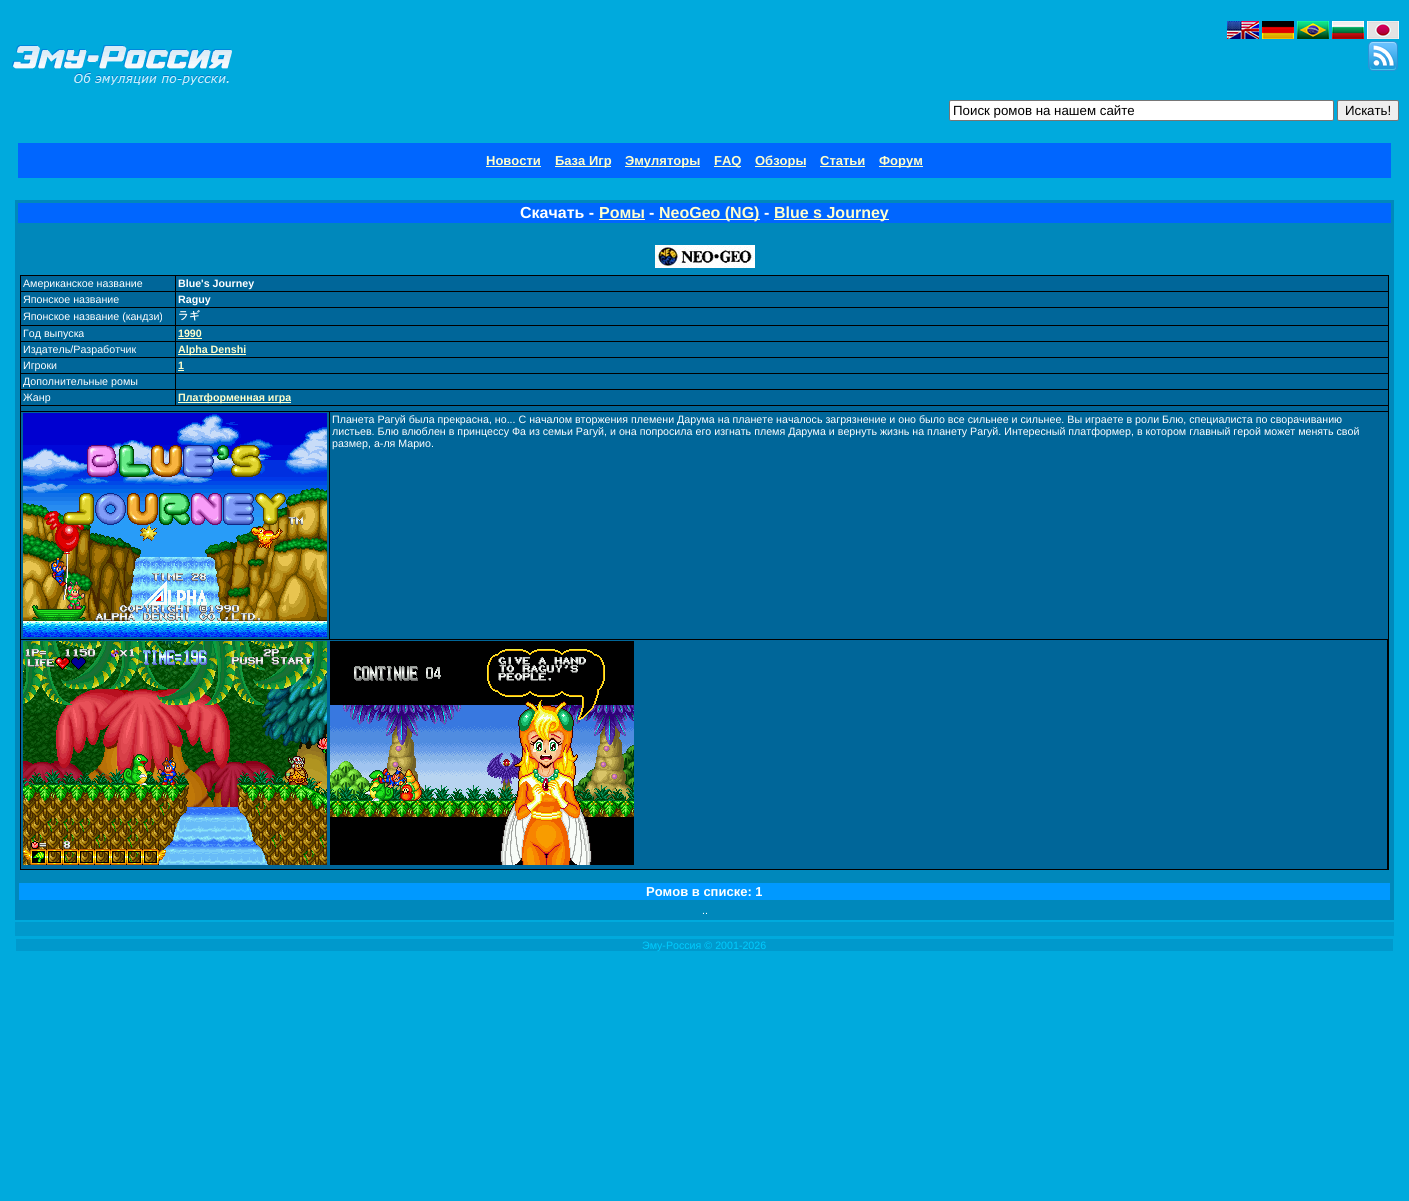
import math
import cairo

surface = cairo.ImageSurface(cairo.Format.RGB24, 1409, 1201)
ctx = cairo.Context(surface)
options = cairo.FontOptions()
options.set_hint_metrics(cairo.HintMetrics.OFF)
options.set_hint_style(cairo.HintStyle.NONE)
ctx.set_font_options(options)
ctx.set_miter_limit(4)


def ink(r, g, b):
    ctx.set_source_rgb(r / 255, g / 255, b / 255)


def write(x, y, s, family, size, color, bold=False, italic=False):
    ctx.select_font_face(family, cairo.FontSlant.ITALIC if italic else cairo.FontSlant.NORMAL, cairo.FontWeight.BOLD if bold else cairo.FontWeight.NORMAL)
    ctx.set_font_size(size)
    ink(*color)
    ctx.move_to(x, y)
    ctx.show_text(s)


def block(x, y, w, h, *color):
    ink(*color)
    ctx.rectangle(x, y, w, h)
    ctx.fill()


def round_path(x, y, w, h, r):
    ctx.new_sub_path()
    for i, (u, v) in enumerate([(x + w - r, y + h - r), (x + r, y + h - r), (x + r, y + r), (x + w - r, y + r)]):
        ctx.arc(u, v, r, i * math.pi / 2, (i + 1) * math.pi / 2)
    ctx.close_path()


def paste(path, x, y, w, h):
    ctx.save()
    ctx.set_source_surface(cairo.ImageSurface.create_from_png(path), x, y)
    ctx.rectangle(x, y, w, h)
    ctx.fill()
    ctx.restore()


s1 = dict(family="Liberation Sans", size=13.3, color=(0, 0, 0))
s2 = dict(family="Liberation Sans", size=13, color=(255, 255, 204), bold=True)
s3 = dict(family="Liberation Sans", size=16, color=(255, 255, 255), bold=True)
s4 = dict(family="Liberation Sans", size=16, color=(255, 255, 204), bold=True)
s5 = dict(family="Liberation Sans", size=10.67, color=(255, 255, 255))
s6 = dict(family="Liberation Sans", size=10.67, color=(255, 255, 255), bold=True)
s7 = dict(family="WenQuanYi Zen Hei", size=10.67, color=(255, 255, 255), bold=True)
s8 = dict(family="Liberation Sans", size=10.67, color=(255, 255, 204), bold=True)
s9 = dict(family="Liberation Sans", size=13, color=(255, 255, 255), bold=True)
s10 = dict(family="Liberation Sans", size=10.67, color=(0, 204, 255))

ink(0, 170, 221)
ctx.paint()
paste("pic1.png", 1227, 21, 32, 18)
paste("pic2.png", 1262, 21, 32, 18)
paste("pic3.png", 1297, 21, 32, 18)
paste("pic4.png", 1332, 21, 32, 18)
paste("pic5.png", 1367, 21, 32, 18)
paste("pic6.png", 12, 45, 220, 40)
paste("pic7.png", 1368, 41, 30, 30)
ink(255, 255, 255)
round_path(949.5, 100.5, 384, 20, 1.5)
ctx.fill_preserve()
ink(118, 118, 118)
ctx.set_line_width(1)
ctx.stroke()
write(953, 115, "Поиск ромов на нашем сайте", **s1)
ink(239, 239, 239)
round_path(1337.5, 100.5, 61, 20, 1.5)
ctx.fill_preserve()
ink(118, 118, 118)
ctx.stroke()
write(1345, 115, "Искать!", **s1)
block(18, 143, 1373, 35, 0, 102, 255)
write(486, 165, "Новости", **s2)
block(486, 166, 55, 1, 255, 255, 204)
block(555, 166, 56, 1, 255, 255, 204)
write(555, 165, "База Игр", **s2)
block(625, 166, 75, 1, 255, 255, 204)
write(625, 165, "Эмуляторы", **s2)
block(714, 166, 27, 1, 255, 255, 204)
write(714, 165, "FAQ", **s2)
block(755, 166, 51, 1, 255, 255, 204)
write(755, 165, "Обзоры", **s2)
write(820, 165, "Статьи", **s2)
block(820, 166, 45, 1, 255, 255, 204)
block(879, 166, 44, 1, 255, 255, 204)
write(879, 165, "Форум", **s2)
block(15, 200, 1379, 720, 0, 136, 187)
block(18, 203, 1373, 20, 0, 102, 255)
write(520, 218, "Скачать -", **s3)
write(599, 218, "Ромы", **s4)
block(599, 219, 46, 1, 255, 255, 204)
write(649, 218, "-", **s3)
block(659, 219, 101, 1, 255, 255, 204)
write(659, 218, "NeoGeo (NG)", **s4)
write(764, 218, "-", **s3)
block(774, 219, 115, 1, 255, 255, 204)
write(774, 218, "Blue s Journey", **s4)
paste("pic8.png", 655, 245, 100, 23)
block(21, 276, 1367, 135, 0, 102, 153)
block(20, 275, 1369, 1, 0, 0, 0)
block(1388, 275, 1, 136, 0, 0, 0)
block(20, 275, 1, 136, 0, 0, 0)
block(175, 276, 1, 130, 0, 0, 0)
block(21, 291, 1367, 1, 0, 0, 0)
write(23, 287, "Американское название", **s5)
write(178, 287, "Blue's Journey", **s6)
block(21, 307, 1367, 1, 0, 0, 0)
write(23, 303, "Японское название", **s5)
write(178, 303, "Raguy", **s6)
block(21, 325, 1367, 1, 0, 0, 0)
write(23, 320, "Японское название (кандзи)", **s5)
write(178, 319, "ラギ", **s7)
block(21, 341, 1367, 1, 0, 0, 0)
write(23, 337, "Год выпуска", **s5)
write(178, 337, "1990", **s8)
block(178, 338, 24, 1, 255, 255, 204)
block(21, 357, 1367, 1, 0, 0, 0)
write(23, 353, "Издатель/Разработчик", **s5)
block(178, 354, 68, 1, 255, 255, 204)
write(178, 353, "Alpha Denshi", **s8)
block(21, 373, 1367, 1, 0, 0, 0)
write(23, 369, "Игроки", **s5)
write(178, 369, "1", **s8)
block(178, 370, 6, 1, 255, 255, 204)
block(21, 389, 1367, 1, 0, 0, 0)
write(23, 385, "Дополнительные ромы", **s5)
block(21, 405, 1367, 1, 0, 0, 0)
write(23, 401, "Жанр", **s5)
block(178, 402, 113, 1, 255, 255, 204)
write(178, 401, "Платформенная игра", **s8)
block(21, 412, 1367, 457, 0, 102, 153)
block(20, 411, 1369, 1, 0, 0, 0)
block(1388, 411, 1, 459, 0, 0, 0)
block(20, 411, 1, 459, 0, 0, 0)
block(329, 412, 1, 228, 0, 0, 0)
block(21, 639, 1367, 1, 0, 0, 0)
paste("pic9.png", 23, 413, 304, 224)
write(332, 423, "Планета Рагуй была прекрасна, но... С началом вторжения племени Дарума на планете началось загрязнение и оно было все сильнее и сильнее. Вы играете в роли Блю, специалиста по сворачиванию", **s5)
write(332, 435, "листьев. Блю влюблен в принцессу Фа из семьи Рагуй, и она попросила его изгнать племя Дарума и вернуть жизнь на планету Рагуй. Интересный платформер, в котором главный герой может менять свой", **s5)
write(332, 447, "размер, а-ля Марио.", **s5)
block(1387, 640, 1, 230, 0, 0, 0)
block(21, 869, 1367, 1, 0, 0, 0)
paste("pic10.png", 23, 641, 304, 224)
paste("pic11.png", 330, 641, 304, 224)
block(19, 883, 1371, 17, 0, 153, 255)
write(646, 896, "Ромов в списке: 1", **s9)
write(702, 914, "..", **s5)
block(15, 922, 1379, 14, 0, 153, 204)
block(16, 939, 1377, 12, 0, 153, 204)
write(642, 949, "Эму-Россия © 2001-2026", **s10)
surface.write_to_png("screenshot.png")
